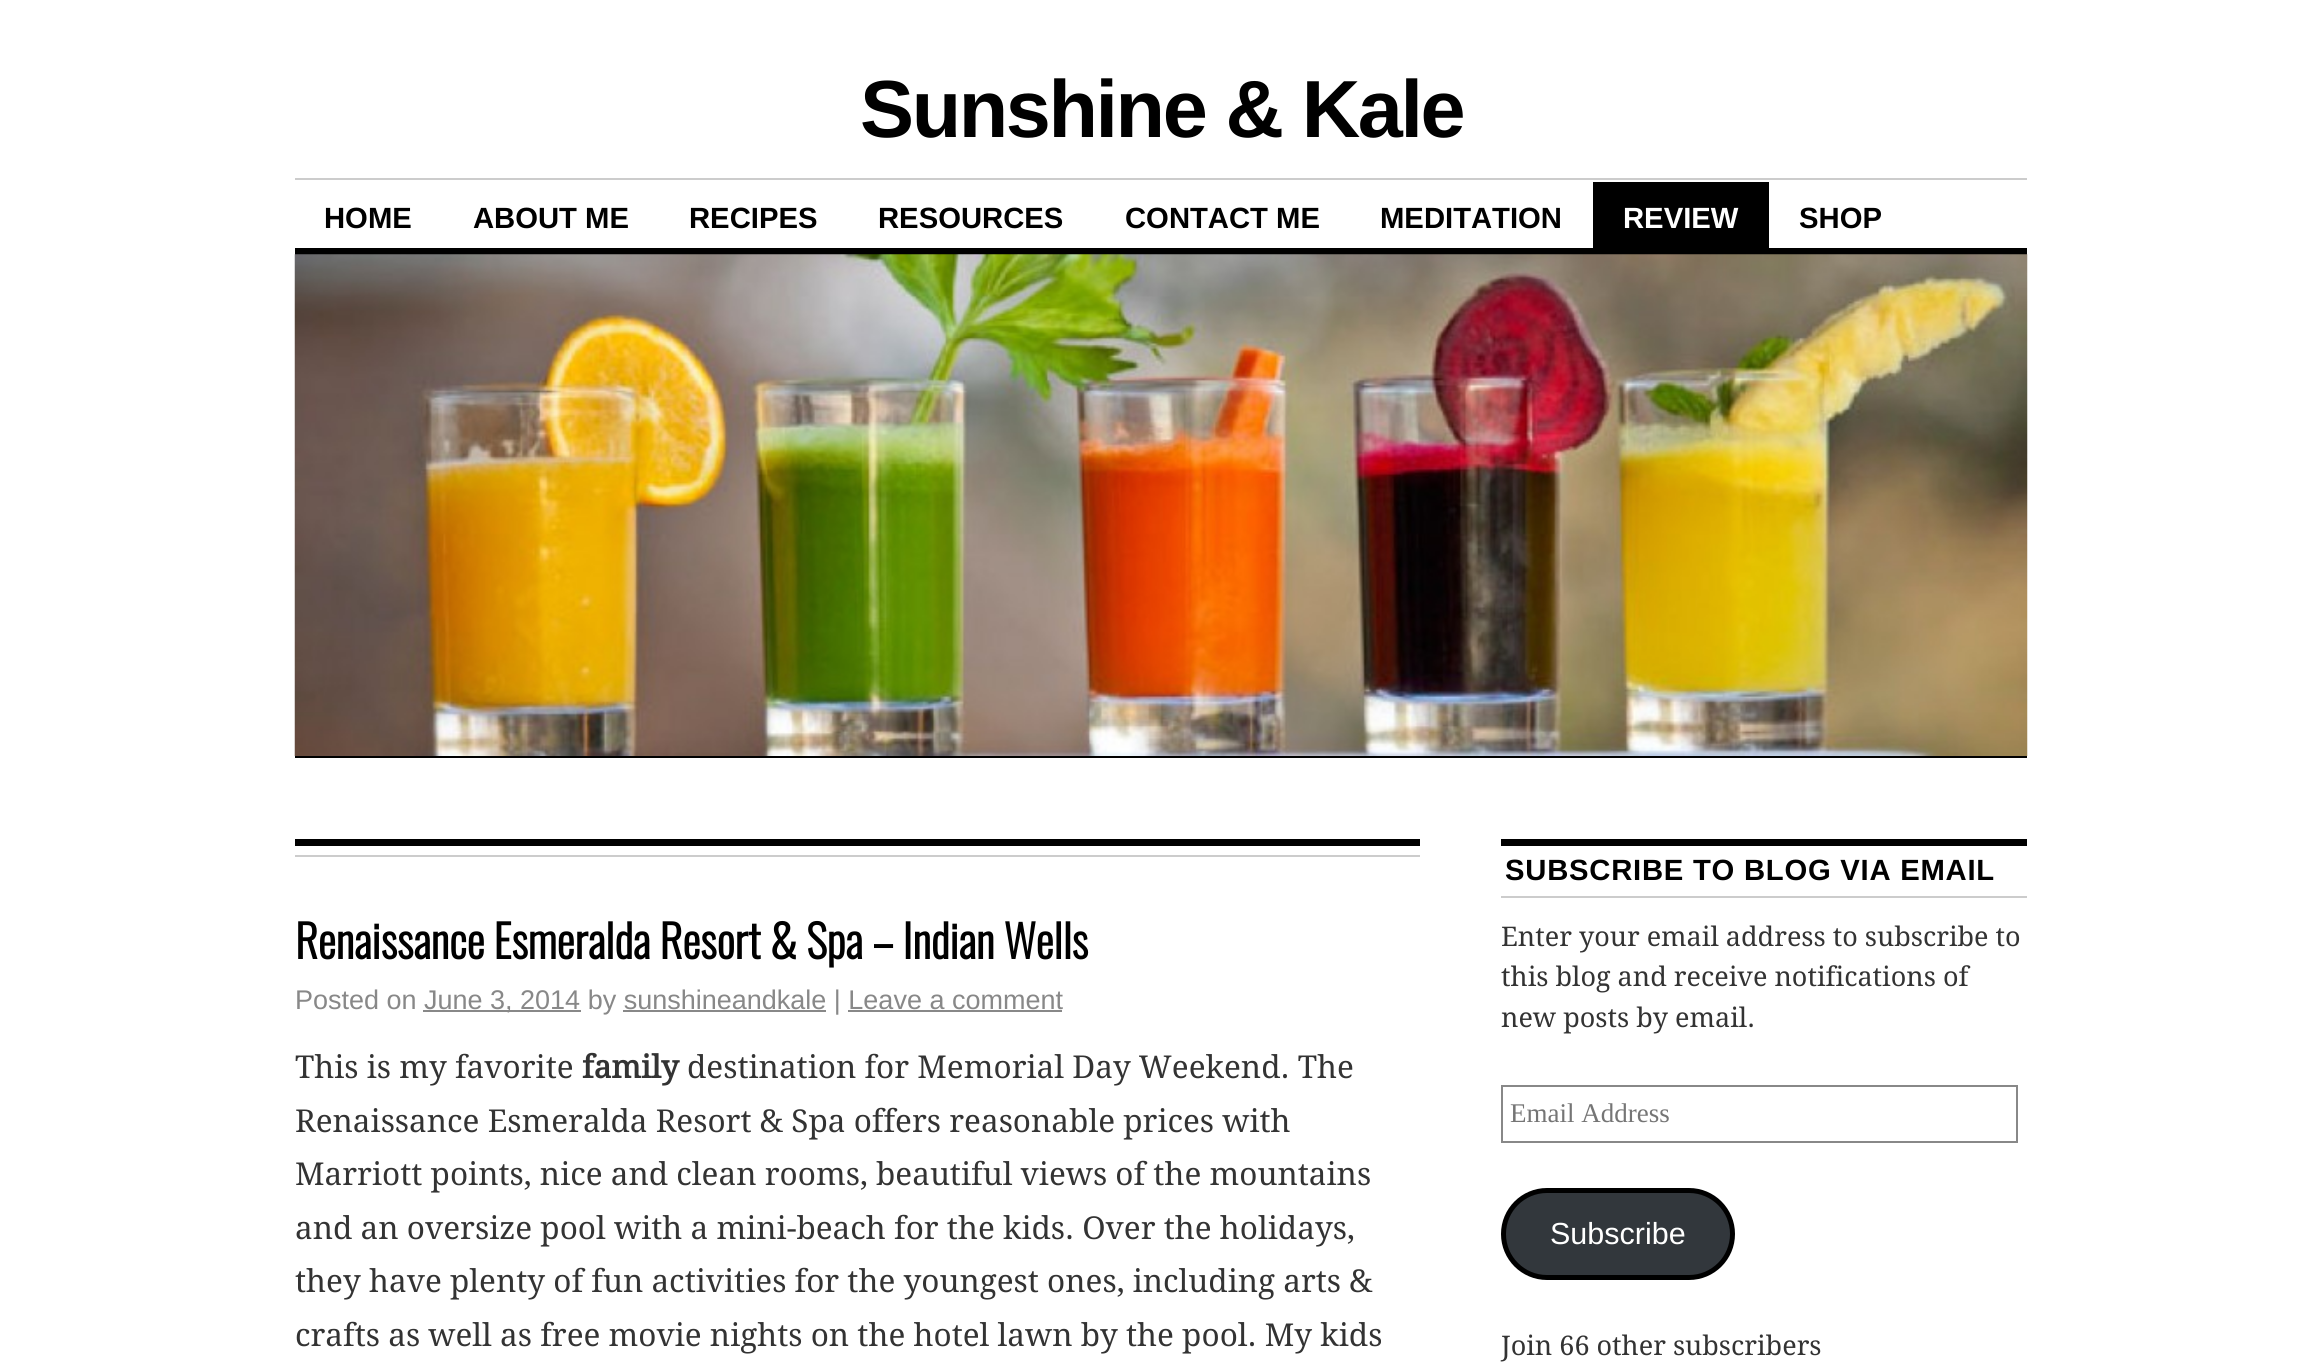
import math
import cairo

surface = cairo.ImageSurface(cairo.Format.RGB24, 2322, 1369)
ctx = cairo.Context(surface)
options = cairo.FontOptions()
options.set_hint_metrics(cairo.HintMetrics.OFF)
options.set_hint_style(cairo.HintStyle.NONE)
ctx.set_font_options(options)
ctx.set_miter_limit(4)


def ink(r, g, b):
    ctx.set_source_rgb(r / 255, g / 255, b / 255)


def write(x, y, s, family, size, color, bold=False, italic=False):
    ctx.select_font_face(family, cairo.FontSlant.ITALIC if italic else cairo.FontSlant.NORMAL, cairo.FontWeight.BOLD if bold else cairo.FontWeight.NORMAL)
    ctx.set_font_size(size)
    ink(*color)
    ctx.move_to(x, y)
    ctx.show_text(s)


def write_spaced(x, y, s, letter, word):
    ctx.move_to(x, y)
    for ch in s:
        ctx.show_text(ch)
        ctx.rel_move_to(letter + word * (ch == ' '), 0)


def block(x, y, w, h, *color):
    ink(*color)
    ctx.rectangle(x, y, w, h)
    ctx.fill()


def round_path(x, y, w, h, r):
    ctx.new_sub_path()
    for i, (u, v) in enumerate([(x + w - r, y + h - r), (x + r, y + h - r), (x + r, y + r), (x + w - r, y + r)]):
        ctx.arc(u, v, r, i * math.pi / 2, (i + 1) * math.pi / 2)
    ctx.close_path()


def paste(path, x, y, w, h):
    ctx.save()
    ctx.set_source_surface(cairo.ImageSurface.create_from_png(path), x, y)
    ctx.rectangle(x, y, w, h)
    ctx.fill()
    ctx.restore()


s1 = dict(family="Liberation Sans", size=29.25, color=(0, 0, 0), bold=True)
s2 = dict(family="Liberation Sans", size=29.25, color=(255, 255, 255), bold=True)
s3 = dict(family="Oswald", size=45, color=(0, 0, 0), bold=True)
s4 = dict(family="Liberation Sans", size=27, color=(136, 136, 136))
s5 = dict(family="Droid Serif", size=31.5, color=(51, 51, 51))
s6 = dict(family="Droid Serif", size=31.5, color=(51, 51, 51), bold=True)
s7 = dict(family="Droid Serif", size=27, color=(51, 51, 51))
s8 = dict(family="Liberation Serif", size=27, color=(117, 117, 117))
s9 = dict(family="Liberation Sans", size=30.5, color=(255, 255, 255))

ink(255, 255, 255)
ctx.paint()
ctx.select_font_face("Liberation Sans", cairo.FontSlant.NORMAL, cairo.FontWeight.BOLD)
ctx.set_font_size(81)
ink(0, 0, 0)
write_spaced(860, 137, "Sunshine & Kale", -2.4, 0)
block(295, 178, 1732, 2, 204, 204, 204)
write(324, 228, "HOME", **s1)
write(473, 228, "ABOUT ME", **s1)
write(689, 228, "RECIPES", **s1)
write(878, 228, "RESOURCES", **s1)
write(1125, 228, "CONTACT ME", **s1)
write(1380, 228, "MEDITATION", **s1)
block(1593, 182, 176, 66, 0, 0, 0)
write(1623, 228, "REVIEW", **s2)
write(1799, 228, "SHOP", **s1)
block(295, 248, 1732, 7, 0, 0, 0)
paste("pic1.png", 294, 254, 1734, 502)
block(295, 756, 1732, 2, 0, 0, 0)
block(295, 839, 1125, 7, 0, 0, 0)
block(295, 855, 1125, 2, 204, 204, 204)
write(295, 959, "Renaissance Esmeralda Resort & Spa – Indian Wells", **s3)
write(295, 1009, "Posted on", **s4)
block(423, 1010, 158, 2, 136, 136, 136)
write(424, 1009, "June 3, 2014 by sunshineandkale | Leave a comment", **s4)
block(623, 1010, 203, 2, 136, 136, 136)
block(848, 1010, 214, 2, 136, 136, 136)
write(295, 1078, "This is my favorite", **s5)
write(582, 1078, "family", **s6)
write(687, 1078, "destination for Memorial Day Weekend. The", **s5)
write(295, 1132, "Renaissance Esmeralda Resort & Spa offers reasonable prices with", **s5)
write(295, 1185, "Marriott points, nice and clean rooms, beautiful views of the mountains", **s5)
write(295, 1239, "and an oversize pool with a mini-beach for the kids. Over the holidays,", **s5)
write(295, 1292, "they have plenty of fun activities for the youngest ones, including arts &", **s5)
write(295, 1346, "crafts as well as free movie nights on the hotel lawn by the pool. My kids", **s5)
block(1501, 839, 526, 7, 0, 0, 0)
block(1501, 896, 526, 2, 204, 204, 204)
ctx.select_font_face("Liberation Sans", cairo.FontSlant.NORMAL, cairo.FontWeight.BOLD)
ctx.set_font_size(29.25)
ink(0, 0, 0)
write_spaced(1505, 880, "SUBSCRIBE TO BLOG VIA EMAIL", 0.75, 0)
write(1501, 946, "Enter your email address to subscribe to", **s7)
write(1501, 986, "this blog and receive notifications of", **s7)
write(1501, 1027, "new posts by email.", **s7)
ctx.rectangle(1502, 1086, 515, 56)
ink(136, 136, 136)
ctx.stroke()
write(1510, 1122, "Email Address", **s8)
ink(50, 55, 60)
round_path(1503.5, 1190.5, 229, 87, 43.5)
ctx.fill_preserve()
ink(0, 0, 0)
ctx.set_line_width(5)
ctx.stroke()
write(1550, 1244, "Subscribe", **s9)
write(1501, 1355, "Join 66 other subscribers", **s7)
surface.write_to_png("screenshot.png")
